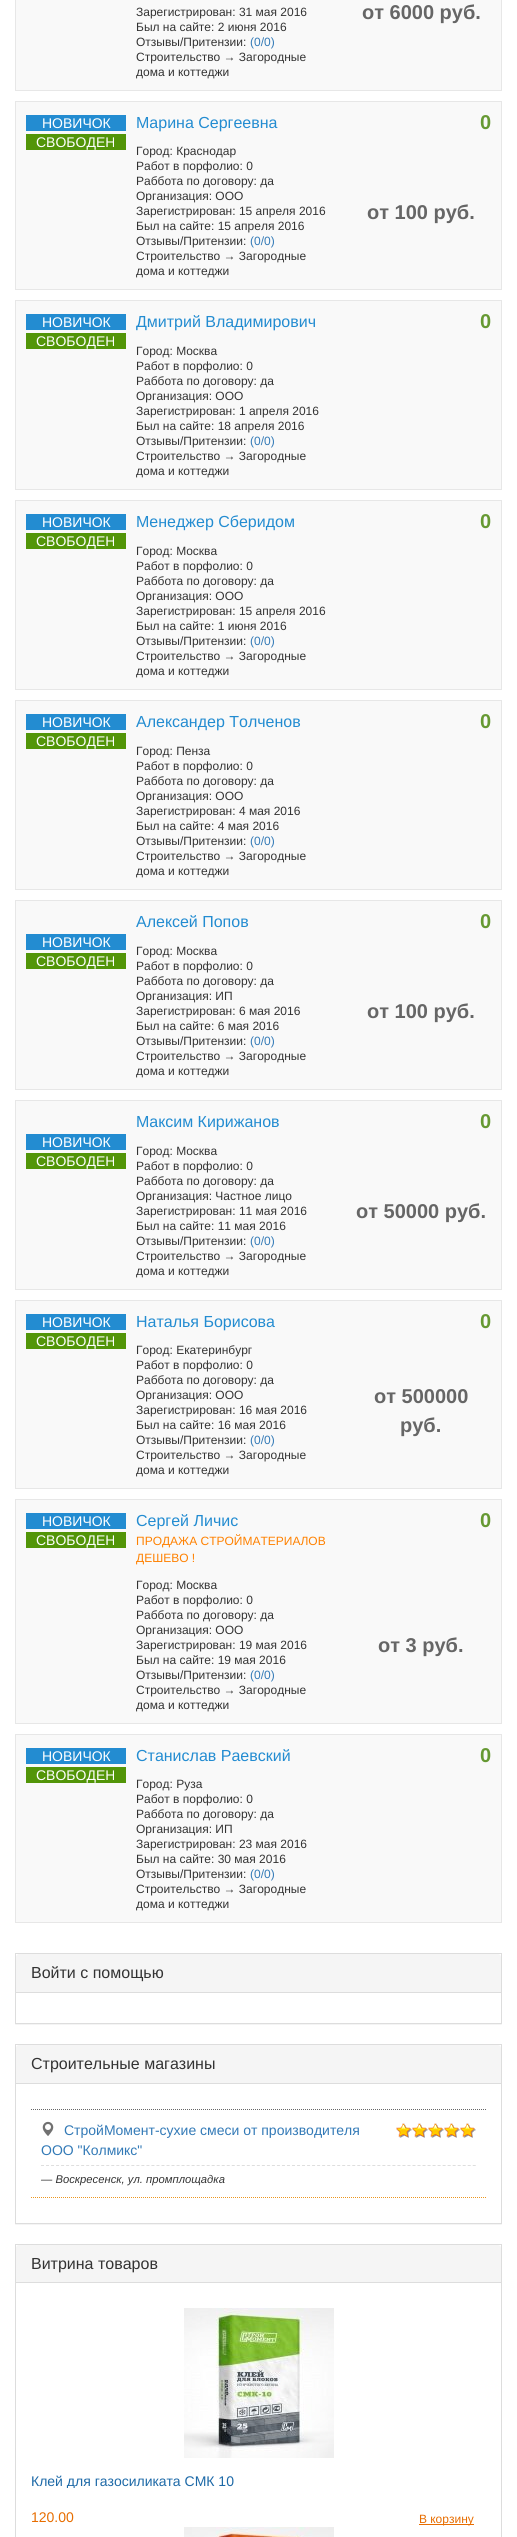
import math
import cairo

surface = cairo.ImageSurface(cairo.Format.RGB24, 517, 2537)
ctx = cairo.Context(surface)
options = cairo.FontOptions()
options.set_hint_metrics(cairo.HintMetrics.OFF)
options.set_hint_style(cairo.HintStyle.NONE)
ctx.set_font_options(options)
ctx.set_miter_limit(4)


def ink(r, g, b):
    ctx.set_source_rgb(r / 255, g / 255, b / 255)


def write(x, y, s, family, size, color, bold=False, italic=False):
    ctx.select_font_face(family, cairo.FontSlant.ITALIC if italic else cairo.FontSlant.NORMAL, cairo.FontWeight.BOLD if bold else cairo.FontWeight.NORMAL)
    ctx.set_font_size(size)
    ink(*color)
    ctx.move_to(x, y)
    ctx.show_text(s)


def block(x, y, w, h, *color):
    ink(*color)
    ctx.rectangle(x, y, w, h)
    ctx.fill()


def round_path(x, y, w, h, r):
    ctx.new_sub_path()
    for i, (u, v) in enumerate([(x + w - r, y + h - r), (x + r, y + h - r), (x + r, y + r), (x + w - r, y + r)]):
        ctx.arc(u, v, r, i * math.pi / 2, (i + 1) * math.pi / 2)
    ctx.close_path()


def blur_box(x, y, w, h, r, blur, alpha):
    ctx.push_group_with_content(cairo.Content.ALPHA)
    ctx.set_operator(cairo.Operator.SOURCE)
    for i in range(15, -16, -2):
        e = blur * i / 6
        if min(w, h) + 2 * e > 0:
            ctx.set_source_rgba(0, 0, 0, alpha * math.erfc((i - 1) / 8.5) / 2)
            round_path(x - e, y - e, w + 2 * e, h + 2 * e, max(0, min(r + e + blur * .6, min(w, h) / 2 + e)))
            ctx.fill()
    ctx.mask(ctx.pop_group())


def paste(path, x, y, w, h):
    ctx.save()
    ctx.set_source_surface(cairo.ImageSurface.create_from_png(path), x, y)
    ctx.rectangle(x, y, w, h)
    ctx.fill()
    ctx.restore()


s1 = dict(family="Liberation Sans", size=12, color=(51, 51, 51))
s2 = dict(family="Liberation Sans", size=12, color=(51, 122, 183))
s3 = dict(family="Liberation Sans", size=20, color=(102, 102, 102), bold=True)
s4 = dict(family="Liberation Sans", size=14, color=(255, 255, 255))
s5 = dict(family="Liberation Sans", size=16, color=(35, 140, 209))
s6 = dict(family="Liberation Sans", size=20, color=(102, 153, 51), bold=True)
s7 = dict(family="Liberation Sans", size=12, color=(255, 129, 0))
s8 = dict(family="Liberation Sans", size=16, color=(51, 51, 51))
s9 = dict(family="Liberation Sans", size=14, color=(51, 122, 183))
s10 = dict(family="Liberation Sans", size=11.25, color=(51, 51, 51), italic=True)
s11 = dict(family="Liberation Sans", size=14, color=(29, 105, 167))
s12 = dict(family="Liberation Sans", size=14, color=(231, 109, 0))
s13 = dict(family="Liberation Sans", size=12, color=(231, 109, 0))

ink(255, 255, 255)
ctx.paint()
ink(249, 249, 249)
ctx.rectangle(15.5, -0.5, 486, 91)
ctx.fill_preserve()
ink(231, 231, 231)
ctx.set_line_width(1)
ctx.stroke()
write(136, 16, "Зарегистрирован: 31 мая 2016", **s1)
write(136, 31, "Был на сайте: 2 июня 2016", **s1)
write(136, 46, "Отзывы/Притензии:", **s1)
write(250, 46, "(0/0)", **s2)
write(136, 61, "Строительство → Загородные", **s1)
write(136, 76, "дома и коттеджи", **s1)
write(362, 19, "от 6000 руб.", **s3)
ink(249, 249, 249)
ctx.rectangle(15.5, 101.5, 486, 188)
ctx.fill_preserve()
ink(231, 231, 231)
ctx.stroke()
block(26, 115, 100, 16, 35, 140, 209)
write(42, 128, "НОВИЧОК", **s4)
block(26, 134, 100, 16, 82, 149, 8)
write(36, 147, "СВОБОДЕН", **s4)
write(136, 128, "Марина Сергеевна", **s5)
write(480, 129, "0", **s6)
write(136, 155, "Город: Краснодар", **s1)
write(136, 170, "Работ в порфолио: 0", **s1)
write(136, 185, "Раббота по договору: да", **s1)
write(136, 200, "Организация: ООО", **s1)
write(136, 215, "Зарегистрирован: 15 апреля 2016", **s1)
write(136, 230, "Был на сайте: 15 апреля 2016", **s1)
write(136, 245, "Отзывы/Притензии:", **s1)
write(250, 245, "(0/0)", **s2)
write(136, 260, "Строительство → Загородные", **s1)
write(136, 275, "дома и коттеджи", **s1)
write(367, 219, "от 100 руб.", **s3)
ink(249, 249, 249)
ctx.rectangle(15.5, 300.5, 486, 189)
ctx.fill_preserve()
ink(231, 231, 231)
ctx.stroke()
block(26, 314, 100, 16, 35, 140, 209)
write(42, 327, "НОВИЧОК", **s4)
block(26, 333, 100, 16, 82, 149, 8)
write(36, 346, "СВОБОДЕН", **s4)
write(136, 327, "Дмитрий Владимирович", **s5)
write(480, 328, "0", **s6)
write(136, 355, "Город: Москва", **s1)
write(136, 370, "Работ в порфолио: 0", **s1)
write(136, 385, "Раббота по договору: да", **s1)
write(136, 400, "Организация: ООО", **s1)
write(136, 415, "Зарегистрирован: 1 апреля 2016", **s1)
write(136, 430, "Был на сайте: 18 апреля 2016", **s1)
write(136, 445, "Отзывы/Притензии:", **s1)
write(250, 445, "(0/0)", **s2)
write(136, 460, "Строительство → Загородные", **s1)
write(136, 475, "дома и коттеджи", **s1)
ink(249, 249, 249)
ctx.rectangle(15.5, 500.5, 486, 189)
ctx.fill_preserve()
ink(231, 231, 231)
ctx.stroke()
block(26, 514, 100, 16, 35, 140, 209)
write(42, 527, "НОВИЧОК", **s4)
block(26, 533, 100, 16, 82, 149, 8)
write(36, 546, "СВОБОДЕН", **s4)
write(136, 527, "Менеджер Сберидом", **s5)
write(480, 528, "0", **s6)
write(136, 555, "Город: Москва", **s1)
write(136, 570, "Работ в порфолио: 0", **s1)
write(136, 585, "Раббота по договору: да", **s1)
write(136, 600, "Организация: ООО", **s1)
write(136, 615, "Зарегистрирован: 15 апреля 2016", **s1)
write(136, 630, "Был на сайте: 1 июня 2016", **s1)
write(136, 645, "Отзывы/Притензии:", **s1)
write(250, 645, "(0/0)", **s2)
write(136, 660, "Строительство → Загородные", **s1)
write(136, 675, "дома и коттеджи", **s1)
ink(249, 249, 249)
ctx.rectangle(15.5, 700.5, 486, 189)
ctx.fill_preserve()
ink(231, 231, 231)
ctx.stroke()
block(26, 714, 100, 16, 35, 140, 209)
write(42, 727, "НОВИЧОК", **s4)
block(26, 733, 100, 16, 82, 149, 8)
write(36, 746, "СВОБОДЕН", **s4)
write(136, 727, "Александер Толченов", **s5)
write(480, 728, "0", **s6)
write(136, 755, "Город: Пенза", **s1)
write(136, 770, "Работ в порфолио: 0", **s1)
write(136, 785, "Раббота по договору: да", **s1)
write(136, 800, "Организация: ООО", **s1)
write(136, 815, "Зарегистрирован: 4 мая 2016", **s1)
write(136, 830, "Был на сайте: 4 мая 2016", **s1)
write(136, 845, "Отзывы/Притензии:", **s1)
write(250, 845, "(0/0)", **s2)
write(136, 860, "Строительство → Загородные", **s1)
write(136, 875, "дома и коттеджи", **s1)
ink(249, 249, 249)
ctx.rectangle(15.5, 900.5, 486, 189)
ctx.fill_preserve()
ink(231, 231, 231)
ctx.stroke()
write(136, 927, "Алексей Попов", **s5)
write(480, 928, "0", **s6)
block(26, 934, 100, 16, 35, 140, 209)
write(42, 947, "НОВИЧОК", **s4)
block(26, 953, 100, 16, 82, 149, 8)
write(36, 966, "СВОБОДЕН", **s4)
write(136, 955, "Город: Москва", **s1)
write(136, 970, "Работ в порфолио: 0", **s1)
write(136, 985, "Раббота по договору: да", **s1)
write(136, 1000, "Организация: ИП", **s1)
write(136, 1015, "Зарегистрирован: 6 мая 2016", **s1)
write(136, 1030, "Был на сайте: 6 мая 2016", **s1)
write(136, 1045, "Отзывы/Притензии:", **s1)
write(250, 1045, "(0/0)", **s2)
write(136, 1060, "Строительство → Загородные", **s1)
write(136, 1075, "дома и коттеджи", **s1)
write(367, 1018, "от 100 руб.", **s3)
ink(249, 249, 249)
ctx.rectangle(15.5, 1100.5, 486, 189)
ctx.fill_preserve()
ink(231, 231, 231)
ctx.stroke()
write(136, 1127, "Максим Кирижанов", **s5)
write(480, 1128, "0", **s6)
block(26, 1134, 100, 16, 35, 140, 209)
write(42, 1147, "НОВИЧОК", **s4)
block(26, 1153, 100, 16, 82, 149, 8)
write(36, 1166, "СВОБОДЕН", **s4)
write(136, 1155, "Город: Москва", **s1)
write(136, 1170, "Работ в порфолио: 0", **s1)
write(136, 1185, "Раббота по договору: да", **s1)
write(136, 1200, "Организация: Частное лицо", **s1)
write(136, 1215, "Зарегистрирован: 11 мая 2016", **s1)
write(136, 1230, "Был на сайте: 11 мая 2016", **s1)
write(136, 1245, "Отзывы/Притензии:", **s1)
write(250, 1245, "(0/0)", **s2)
write(136, 1260, "Строительство → Загородные", **s1)
write(136, 1275, "дома и коттеджи", **s1)
write(356, 1218, "от 50000 руб.", **s3)
ink(249, 249, 249)
ctx.rectangle(15.5, 1300.5, 486, 188)
ctx.fill_preserve()
ink(231, 231, 231)
ctx.stroke()
block(26, 1314, 100, 16, 35, 140, 209)
write(42, 1327, "НОВИЧОК", **s4)
block(26, 1333, 100, 16, 82, 149, 8)
write(36, 1346, "СВОБОДЕН", **s4)
write(136, 1327, "Наталья Борисова", **s5)
write(480, 1328, "0", **s6)
write(136, 1354, "Город: Екатеринбург", **s1)
write(136, 1369, "Работ в порфолио: 0", **s1)
write(136, 1384, "Раббота по договору: да", **s1)
write(136, 1399, "Организация: ООО", **s1)
write(136, 1414, "Зарегистрирован: 16 мая 2016", **s1)
write(136, 1429, "Был на сайте: 16 мая 2016", **s1)
write(136, 1444, "Отзывы/Притензии:", **s1)
write(250, 1444, "(0/0)", **s2)
write(136, 1459, "Строительство → Загородные", **s1)
write(136, 1474, "дома и коттеджи", **s1)
write(374, 1403, "от 500000", **s3)
write(400, 1432, "руб.", **s3)
ink(249, 249, 249)
ctx.rectangle(15.5, 1499.5, 486, 224)
ctx.fill_preserve()
ink(231, 231, 231)
ctx.stroke()
block(26, 1513, 100, 16, 35, 140, 209)
write(42, 1526, "НОВИЧОК", **s4)
block(26, 1532, 100, 16, 82, 149, 8)
write(36, 1545, "СВОБОДЕН", **s4)
write(136, 1526, "Сергей Личис", **s5)
write(136, 1545, "ПРОДАЖА СТРОЙМАТЕРИАЛОВ", **s7)
write(136, 1562, "ДЕШЕВО !", **s7)
write(480, 1527, "0", **s6)
write(136, 1589, "Город: Москва", **s1)
write(136, 1604, "Работ в порфолио: 0", **s1)
write(136, 1619, "Раббота по договору: да", **s1)
write(136, 1634, "Организация: ООО", **s1)
write(136, 1649, "Зарегистрирован: 19 мая 2016", **s1)
write(136, 1664, "Был на сайте: 19 мая 2016", **s1)
write(136, 1679, "Отзывы/Притензии:", **s1)
write(250, 1679, "(0/0)", **s2)
write(136, 1694, "Строительство → Загородные", **s1)
write(136, 1709, "дома и коттеджи", **s1)
write(378, 1652, "от 3 руб.", **s3)
ink(249, 249, 249)
ctx.rectangle(15.5, 1734.5, 486, 188)
ctx.fill_preserve()
ink(231, 231, 231)
ctx.stroke()
block(26, 1748, 100, 16, 35, 140, 209)
write(42, 1761, "НОВИЧОК", **s4)
block(26, 1767, 100, 16, 82, 149, 8)
write(36, 1780, "СВОБОДЕН", **s4)
write(136, 1761, "Станислав Раевский", **s5)
write(480, 1762, "0", **s6)
write(136, 1788, "Город: Руза", **s1)
write(136, 1803, "Работ в порфолио: 0", **s1)
write(136, 1818, "Раббота по договору: да", **s1)
write(136, 1833, "Организация: ИП", **s1)
write(136, 1848, "Зарегистрирован: 23 мая 2016", **s1)
write(136, 1863, "Был на сайте: 30 мая 2016", **s1)
write(136, 1878, "Отзывы/Притензии:", **s1)
write(250, 1878, "(0/0)", **s2)
write(136, 1893, "Строительство → Загородные", **s1)
write(136, 1908, "дома и коттеджи", **s1)
ctx.save()
ctx.rectangle(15, 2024, 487, 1)
ctx.clip()
ink(0, 0, 0)
blur_box(15, 1954, 487, 71, 0, 0.5, 0.05)
ctx.restore()
ctx.rectangle(15.5, 1953.5, 486, 70)
ink(221, 221, 221)
ctx.stroke()
ink(245, 245, 245)
ctx.new_path()
ctx.move_to(19, 1954)
ctx.line_to(498, 1954)
ctx.curve_to(499.5, 1954, 501, 1955.5, 501, 1957)
ctx.line_to(501, 1993)
ctx.line_to(16, 1993)
ctx.line_to(16, 1957)
ctx.curve_to(16, 1955.5, 17.5, 1954, 19, 1954)
ctx.close_path()
ctx.fill()
block(16, 1992, 485, 1, 221, 221, 221)
write(31, 1978, "Войти с помощью", **s8)
ctx.save()
ctx.rectangle(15, 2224, 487, 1)
ctx.clip()
ink(0, 0, 0)
blur_box(15, 2045, 487, 180, 0, 0.5, 0.05)
ctx.restore()
ctx.rectangle(15.5, 2044.5, 486, 179)
ink(221, 221, 221)
ctx.stroke()
ink(245, 245, 245)
ctx.new_path()
ctx.move_to(19, 2045)
ctx.line_to(498, 2045)
ctx.curve_to(499.5, 2045, 501, 2046.5, 501, 2048)
ctx.line_to(501, 2084)
ctx.line_to(16, 2084)
ctx.line_to(16, 2048)
ctx.curve_to(16, 2046.5, 17.5, 2045, 19, 2045)
ctx.close_path()
ctx.fill()
block(16, 2083, 485, 1, 221, 221, 221)
write(31, 2069, "Строительные магазины", **s8)
ctx.new_path()
ctx.move_to(31, 2109.5)
ctx.line_to(486, 2109.5)
ink(102, 102, 102)
ctx.set_dash([1, 1])
ctx.stroke()
ctx.new_path()
ctx.move_to(31, 2197.5)
ctx.line_to(486, 2197.5)
ink(236, 151, 31)
ctx.stroke()
paste("pic1.png", 42, 2121, 12, 15)
write(64, 2135, "СтройМомент-сухие смеси от производителя", **s9)
write(41, 2155, "ООО \"Колмикс\"", **s9)
paste("pic2.png", 396, 2123, 16, 15)
paste("pic2.png", 412, 2123, 16, 15)
paste("pic2.png", 428, 2123, 16, 15)
paste("pic2.png", 444, 2123, 16, 15)
paste("pic2.png", 460, 2123, 16, 15)
ctx.new_path()
ctx.move_to(41, 2165.5)
ctx.line_to(476, 2165.5)
ink(222, 222, 222)
ctx.set_dash([3, 2.02])
ctx.stroke()
write(41, 2183, "— Воскресенск, ул. промплощадка", **s10)
ctx.rectangle(15.5, 2244.5, 486, 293)
ink(221, 221, 221)
ctx.set_dash([])
ctx.stroke()
ink(245, 245, 245)
ctx.new_path()
ctx.move_to(19, 2245)
ctx.line_to(498, 2245)
ctx.curve_to(499.5, 2245, 501, 2246.5, 501, 2248)
ctx.line_to(501, 2283)
ctx.line_to(16, 2283)
ctx.line_to(16, 2248)
ctx.curve_to(16, 2246.5, 17.5, 2245, 19, 2245)
ctx.close_path()
ctx.fill()
block(16, 2282, 485, 1, 221, 221, 221)
write(31, 2269, "Витрина товаров", **s8)
paste("pic3.png", 184, 2308, 150, 150)
ctx.save()
ctx.rectangle(31, 2468, 210, 20)
ctx.clip()
write(31, 2486, "Клей для газосиликата СМК 10", **s11)
ctx.restore()
write(31, 2522, "120.00", **s12)
block(419, 2524, 55, 1, 231, 109, 0)
write(419, 2523, "В корзину", **s13)
paste("pic4.png", 184, 2527, 150, 10)
surface.write_to_png("screenshot.png")
